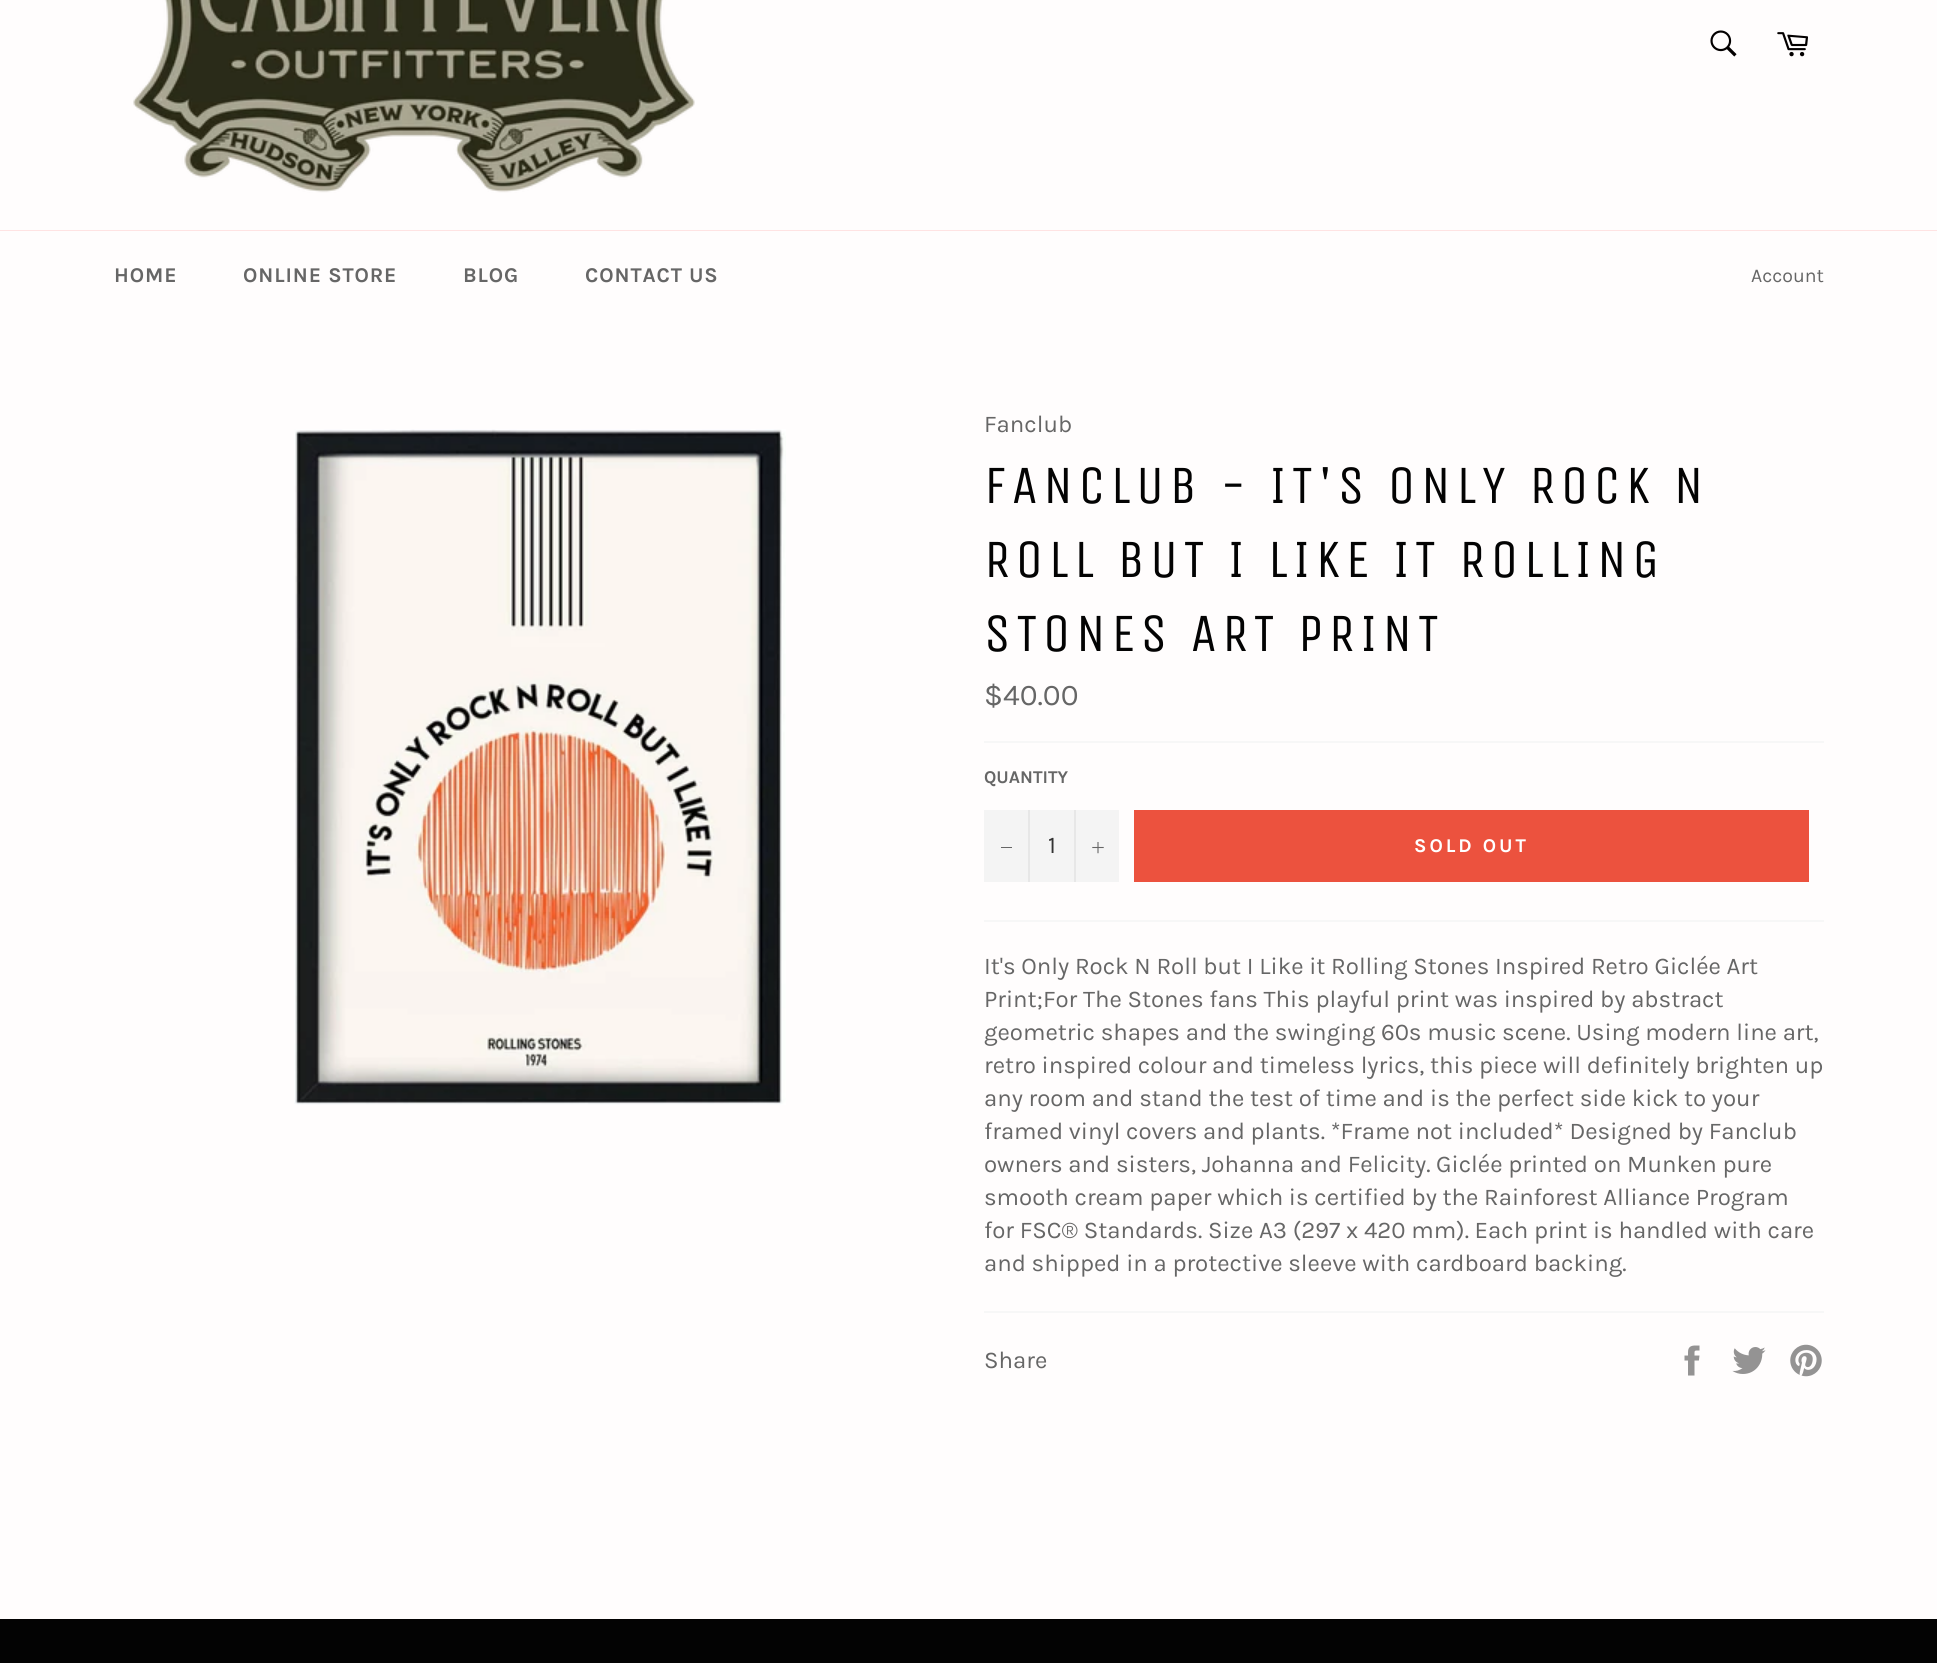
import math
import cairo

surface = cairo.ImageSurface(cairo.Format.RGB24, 1937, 1663)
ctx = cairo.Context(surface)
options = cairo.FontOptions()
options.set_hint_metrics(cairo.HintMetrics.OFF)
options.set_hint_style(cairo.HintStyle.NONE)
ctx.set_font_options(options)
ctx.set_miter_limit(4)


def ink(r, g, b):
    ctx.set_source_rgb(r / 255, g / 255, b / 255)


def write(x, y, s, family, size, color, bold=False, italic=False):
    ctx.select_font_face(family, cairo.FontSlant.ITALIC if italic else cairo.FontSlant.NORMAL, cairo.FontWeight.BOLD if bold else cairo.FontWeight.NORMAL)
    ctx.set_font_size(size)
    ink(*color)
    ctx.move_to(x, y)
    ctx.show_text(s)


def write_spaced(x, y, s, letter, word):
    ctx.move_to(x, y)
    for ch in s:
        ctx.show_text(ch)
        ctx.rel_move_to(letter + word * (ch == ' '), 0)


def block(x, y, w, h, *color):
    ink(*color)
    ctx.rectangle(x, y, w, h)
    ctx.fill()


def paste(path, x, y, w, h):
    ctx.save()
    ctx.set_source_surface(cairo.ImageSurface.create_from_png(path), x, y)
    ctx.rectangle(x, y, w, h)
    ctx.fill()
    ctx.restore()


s1 = dict(family="Karla", size=19.5, color=(102, 102, 102))
s2 = dict(family="Karla", size=24, color=(102, 102, 102))
s3 = dict(family="Karla", size=30, color=(102, 102, 102))
s4 = dict(family="Karla", size=18, color=(102, 102, 102), bold=True)
s5 = dict(family="Karla", size=24, color=(51, 51, 51))

ink(255, 253, 253)
ctx.paint()
paste("pic1.png", 133, 0, 562, 193)
paste("pic2.png", 1710, 30, 27, 27)
paste("pic3.png", 1777, 32, 31, 25)
block(0, 230, 1937, 1, 255, 227, 227)
ctx.select_font_face("Karla", cairo.FontSlant.NORMAL, cairo.FontWeight.BOLD)
ctx.set_font_size(21)
ink(102, 102, 102)
write_spaced(114, 282, "HOME", 0.9, 0)
write_spaced(243, 282, "ONLINE STORE", 0.9, 0)
write_spaced(463, 282, "BLOG", 0.9, 0)
write_spaced(585, 282, "CONTACT US", 0.9, 0)
write(1751, 282, "Account", **s1)
paste("pic4.png", 294, 429, 492, 676)
write(984, 432, "Fanclub", **s2)
ctx.select_font_face("Unica One")
ctx.set_font_size(54)
ink(3, 3, 3)
write_spaced(984, 503, "FANCLUB - IT'S ONLY ROCK N", 5.4, 0)
write_spaced(984, 577, "ROLL BUT I LIKE IT ROLLING", 5.4, 0)
write_spaced(984, 651, "STONES ART PRINT", 5.4, 0)
write(984, 705, "$40.00", **s3)
block(984, 741, 840, 2, 247, 247, 247)
write(984, 783, "QUANTITY", **s4)
block(984, 810, 135, 72, 244, 244, 244)
block(1028, 810, 2, 72, 231, 231, 231)
block(1001, 847, 11, 1, 102, 102, 102)
write(1048, 853, "1", **s5)
block(1074, 810, 2, 72, 231, 231, 231)
paste("pic5.png", 1092, 842, 12, 12)
block(1134, 810, 675, 72, 236, 82, 62)
ctx.select_font_face("Karla", cairo.FontSlant.NORMAL, cairo.FontWeight.BOLD)
ctx.set_font_size(19.5)
ink(255, 255, 255)
write_spaced(1414, 852, "SOLD OUT", 3, 0)
block(984, 920, 840, 2, 247, 247, 247)
write(984, 974, "It's Only Rock N Roll but I Like it Rolling Stones Inspired Retro Giclée Art", **s2)
write(984, 1007, "Print;For The Stones fans This playful print was inspired by abstract", **s2)
write(984, 1040, "geometric shapes and the swinging 60s music scene. Using modern line art,", **s2)
write(984, 1073, "retro inspired colour and timeless lyrics, this piece will definitely brighten up", **s2)
write(984, 1106, "any room and stand the test of time and is the perfect side kick to your", **s2)
write(984, 1139, "framed vinyl covers and plants. *Frame not included* Designed by Fanclub", **s2)
write(984, 1172, "owners and sisters, Johanna and Felicity. Giclée printed on Munken pure", **s2)
write(984, 1205, "smooth cream paper which is certified by the Rainforest Alliance Program", **s2)
write(984, 1238, "for FSC® Standards. Size A3 (297 x 420 mm). Each print is handled with care", **s2)
write(984, 1271, "and shipped in a protective sleeve with cardboard backing.", **s2)
block(984, 1311, 840, 2, 247, 247, 247)
write(984, 1368, "Share", **s2)
paste("pic6.png", 1684, 1345, 16, 31)
paste("pic7.png", 1732, 1347, 34, 27)
paste("pic8.png", 1790, 1344, 32, 33)
block(0, 1619, 1937, 44, 3, 3, 3)
surface.write_to_png("screenshot.png")
